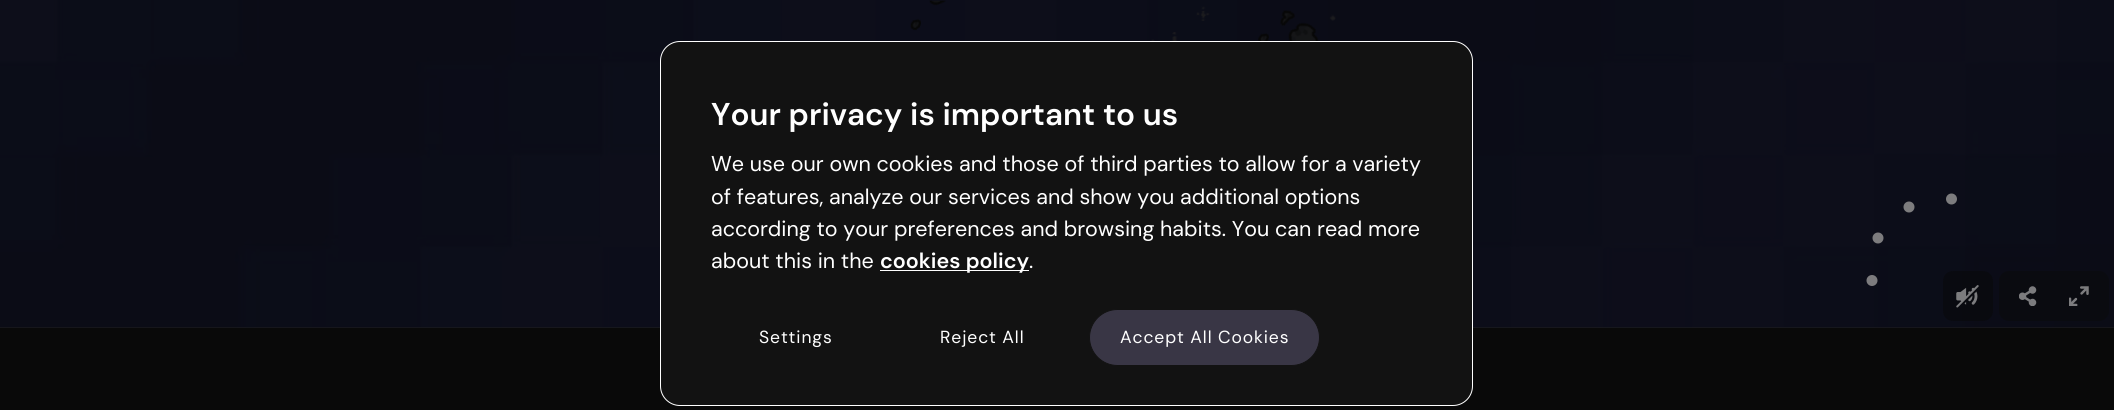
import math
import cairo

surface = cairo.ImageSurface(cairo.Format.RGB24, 2114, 410)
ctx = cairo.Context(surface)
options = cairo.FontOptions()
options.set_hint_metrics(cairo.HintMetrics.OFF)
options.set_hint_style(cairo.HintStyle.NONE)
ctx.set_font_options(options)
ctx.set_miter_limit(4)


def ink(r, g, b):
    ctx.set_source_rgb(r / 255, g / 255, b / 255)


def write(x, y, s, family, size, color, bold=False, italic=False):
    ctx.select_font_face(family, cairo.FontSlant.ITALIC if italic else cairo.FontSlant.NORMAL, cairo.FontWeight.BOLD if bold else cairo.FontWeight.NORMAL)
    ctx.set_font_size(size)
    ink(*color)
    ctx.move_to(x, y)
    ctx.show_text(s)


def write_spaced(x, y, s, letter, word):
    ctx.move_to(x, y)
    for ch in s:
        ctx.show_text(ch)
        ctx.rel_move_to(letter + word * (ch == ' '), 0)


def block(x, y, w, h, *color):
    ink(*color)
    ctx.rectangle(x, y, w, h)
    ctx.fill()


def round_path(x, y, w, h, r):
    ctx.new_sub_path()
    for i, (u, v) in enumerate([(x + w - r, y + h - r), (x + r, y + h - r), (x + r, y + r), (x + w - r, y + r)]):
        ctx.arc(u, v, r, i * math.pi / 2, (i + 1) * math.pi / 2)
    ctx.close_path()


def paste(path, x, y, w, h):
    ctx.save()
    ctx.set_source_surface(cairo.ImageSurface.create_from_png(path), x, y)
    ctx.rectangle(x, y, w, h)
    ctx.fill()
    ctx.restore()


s1 = dict(family="DM Sans SemiBold", size=31.5, color=(255, 255, 255))
s2 = dict(family="DM Sans", size=21.5, color=(255, 255, 255))
s3 = dict(family="DM Sans SemiBold", size=21.5, color=(255, 255, 255))

ink(33, 33, 33)
ctx.paint()
paste("pic1.png", 0, 0, 2114, 328)
paste("pic2.png", 929, 0, 17, 6)
paste("pic3.png", 910, 18, 11, 13)
paste("pic4.png", 1170, 6, 40, 35)
paste("pic5.png", 1280, 10, 39, 31)
paste("pic6.png", 1329, 14, 7, 7)
paste("pic7.png", 1150, 39, 5, 2)
paste("pic8.png", 1258, 33, 11, 8)
ink(125, 124, 126)
ctx.arc(1872, 280.5, 5.5, 0, 2 * math.pi)
ctx.fill()
ctx.arc(1878, 238, 5.5, 0, 2 * math.pi)
ctx.fill()
ctx.arc(1909, 207, 5.5, 0, 2 * math.pi)
ctx.fill()
ctx.arc(1951.5, 199, 5.5, 0, 2 * math.pi)
ctx.fill()
ctx.set_source_rgba(0.035, 0.035, 0.035, 0.5)
round_path(1943, 271, 50, 50, 10)
ctx.fill()
paste("pic9.png", 1956, 285, 23, 23)
ink(10, 11, 16)
round_path(1999, 271, 110, 50, 10)
ctx.fill()
paste("pic10.png", 2019, 286, 18, 20)
paste("pic11.png", 2069, 286, 20, 20)
block(0, 328, 2114, 82, 9, 9, 9)
ink(18, 18, 18)
round_path(660.5, 41.5, 812, 364, 19.5)
ctx.fill_preserve()
ink(255, 255, 255)
ctx.set_line_width(1)
ctx.stroke()
write(711, 125, "Your privacy is important to us", **s1)
write(711, 171, "We use our own cookies and those of third parties to allow for a variety", **s2)
write(711, 204, "of features, analyze our services and show you additional options", **s2)
write(711, 236, "according to your preferences and browsing habits. You can read more", **s2)
write(711, 268, "about this in the", **s2)
block(880, 270, 149, 1, 255, 255, 255)
write(880, 268, "cookies policy", **s3)
write(1029, 268, ".", **s2)
ctx.set_font_size(17.5)
write_spaced(759, 343, "Settings", 0.9, 0)
write_spaced(940, 343, "Reject All", 0.9, 0)
ink(57, 54, 69)
round_path(1089.5, 309.5, 230, 56, 28)
ctx.fill_preserve()
ink(18, 18, 18)
ctx.stroke()
ink(255, 255, 255)
write_spaced(1120, 343, "Accept All Cookies", 0.9, 0)
surface.write_to_png("screenshot.png")
